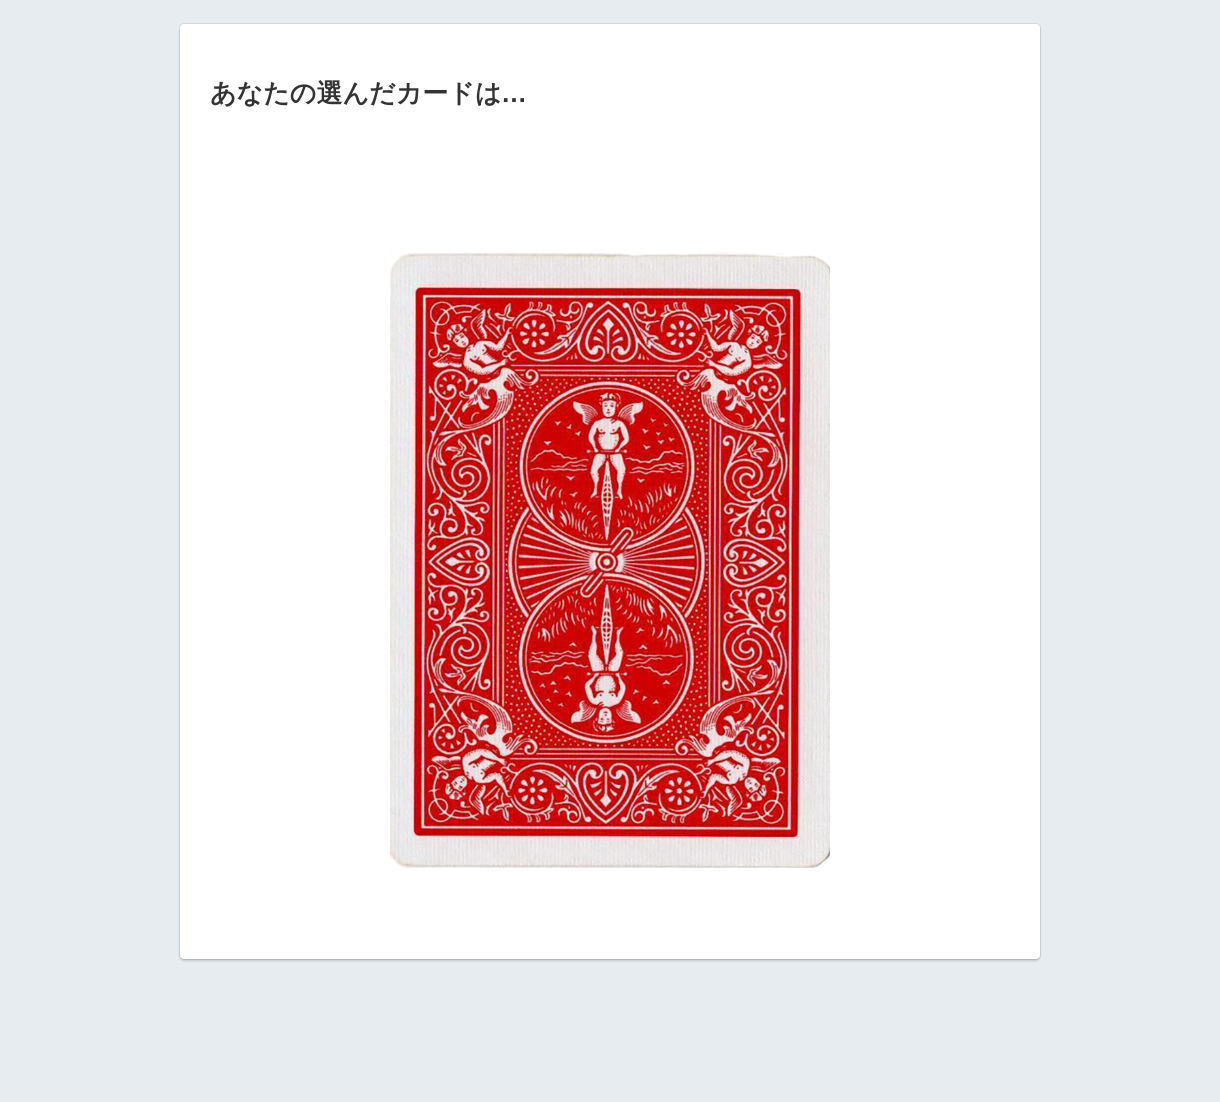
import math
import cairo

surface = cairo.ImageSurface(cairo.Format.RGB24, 1220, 1102)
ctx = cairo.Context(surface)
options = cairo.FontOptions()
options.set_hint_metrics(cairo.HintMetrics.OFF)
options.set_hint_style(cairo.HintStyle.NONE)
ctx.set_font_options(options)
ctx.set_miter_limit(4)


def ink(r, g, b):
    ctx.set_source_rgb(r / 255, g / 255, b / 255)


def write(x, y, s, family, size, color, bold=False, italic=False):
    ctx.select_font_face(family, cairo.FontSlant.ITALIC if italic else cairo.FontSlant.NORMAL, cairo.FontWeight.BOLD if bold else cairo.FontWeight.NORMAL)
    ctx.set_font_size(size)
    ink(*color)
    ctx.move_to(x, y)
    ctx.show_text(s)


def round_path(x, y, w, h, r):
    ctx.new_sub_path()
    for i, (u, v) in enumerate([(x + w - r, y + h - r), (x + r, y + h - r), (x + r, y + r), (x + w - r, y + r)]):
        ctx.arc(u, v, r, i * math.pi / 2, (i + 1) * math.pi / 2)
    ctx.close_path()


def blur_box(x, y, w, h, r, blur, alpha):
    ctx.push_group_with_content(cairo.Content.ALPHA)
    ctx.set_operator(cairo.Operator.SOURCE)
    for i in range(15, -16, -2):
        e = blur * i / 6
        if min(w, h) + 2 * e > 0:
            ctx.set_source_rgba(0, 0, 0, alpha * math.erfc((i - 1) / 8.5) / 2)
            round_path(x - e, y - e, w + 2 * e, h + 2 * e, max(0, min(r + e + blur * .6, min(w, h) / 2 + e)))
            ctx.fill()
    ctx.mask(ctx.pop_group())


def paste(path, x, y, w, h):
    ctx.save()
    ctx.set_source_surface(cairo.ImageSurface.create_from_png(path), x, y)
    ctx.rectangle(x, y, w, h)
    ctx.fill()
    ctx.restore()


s1 = dict(family="WenQuanYi Zen Hei", size=26, color=(51, 51, 51), bold=True)
s2 = dict(family="Liberation Sans", size=26, color=(51, 51, 51), bold=True)

ink(230, 236, 240)
ctx.paint()
round_path(179.5, 23.5, 861, 936, 4.5)
ink(212, 217, 221)
ctx.set_line_width(1)
ctx.stroke()
ink(0, 0, 0)
blur_box(180, 26, 860, 935, 4, 1, 0.16)
ink(255, 255, 255)
round_path(180, 24, 860, 935, 4)
ctx.fill()
write(210, 102, "あなたの選んだカードは", **s1)
write(501, 102, "…", **s2)
paste("pic1.png", 390, 253, 440, 615)
surface.write_to_png("screenshot.png")
